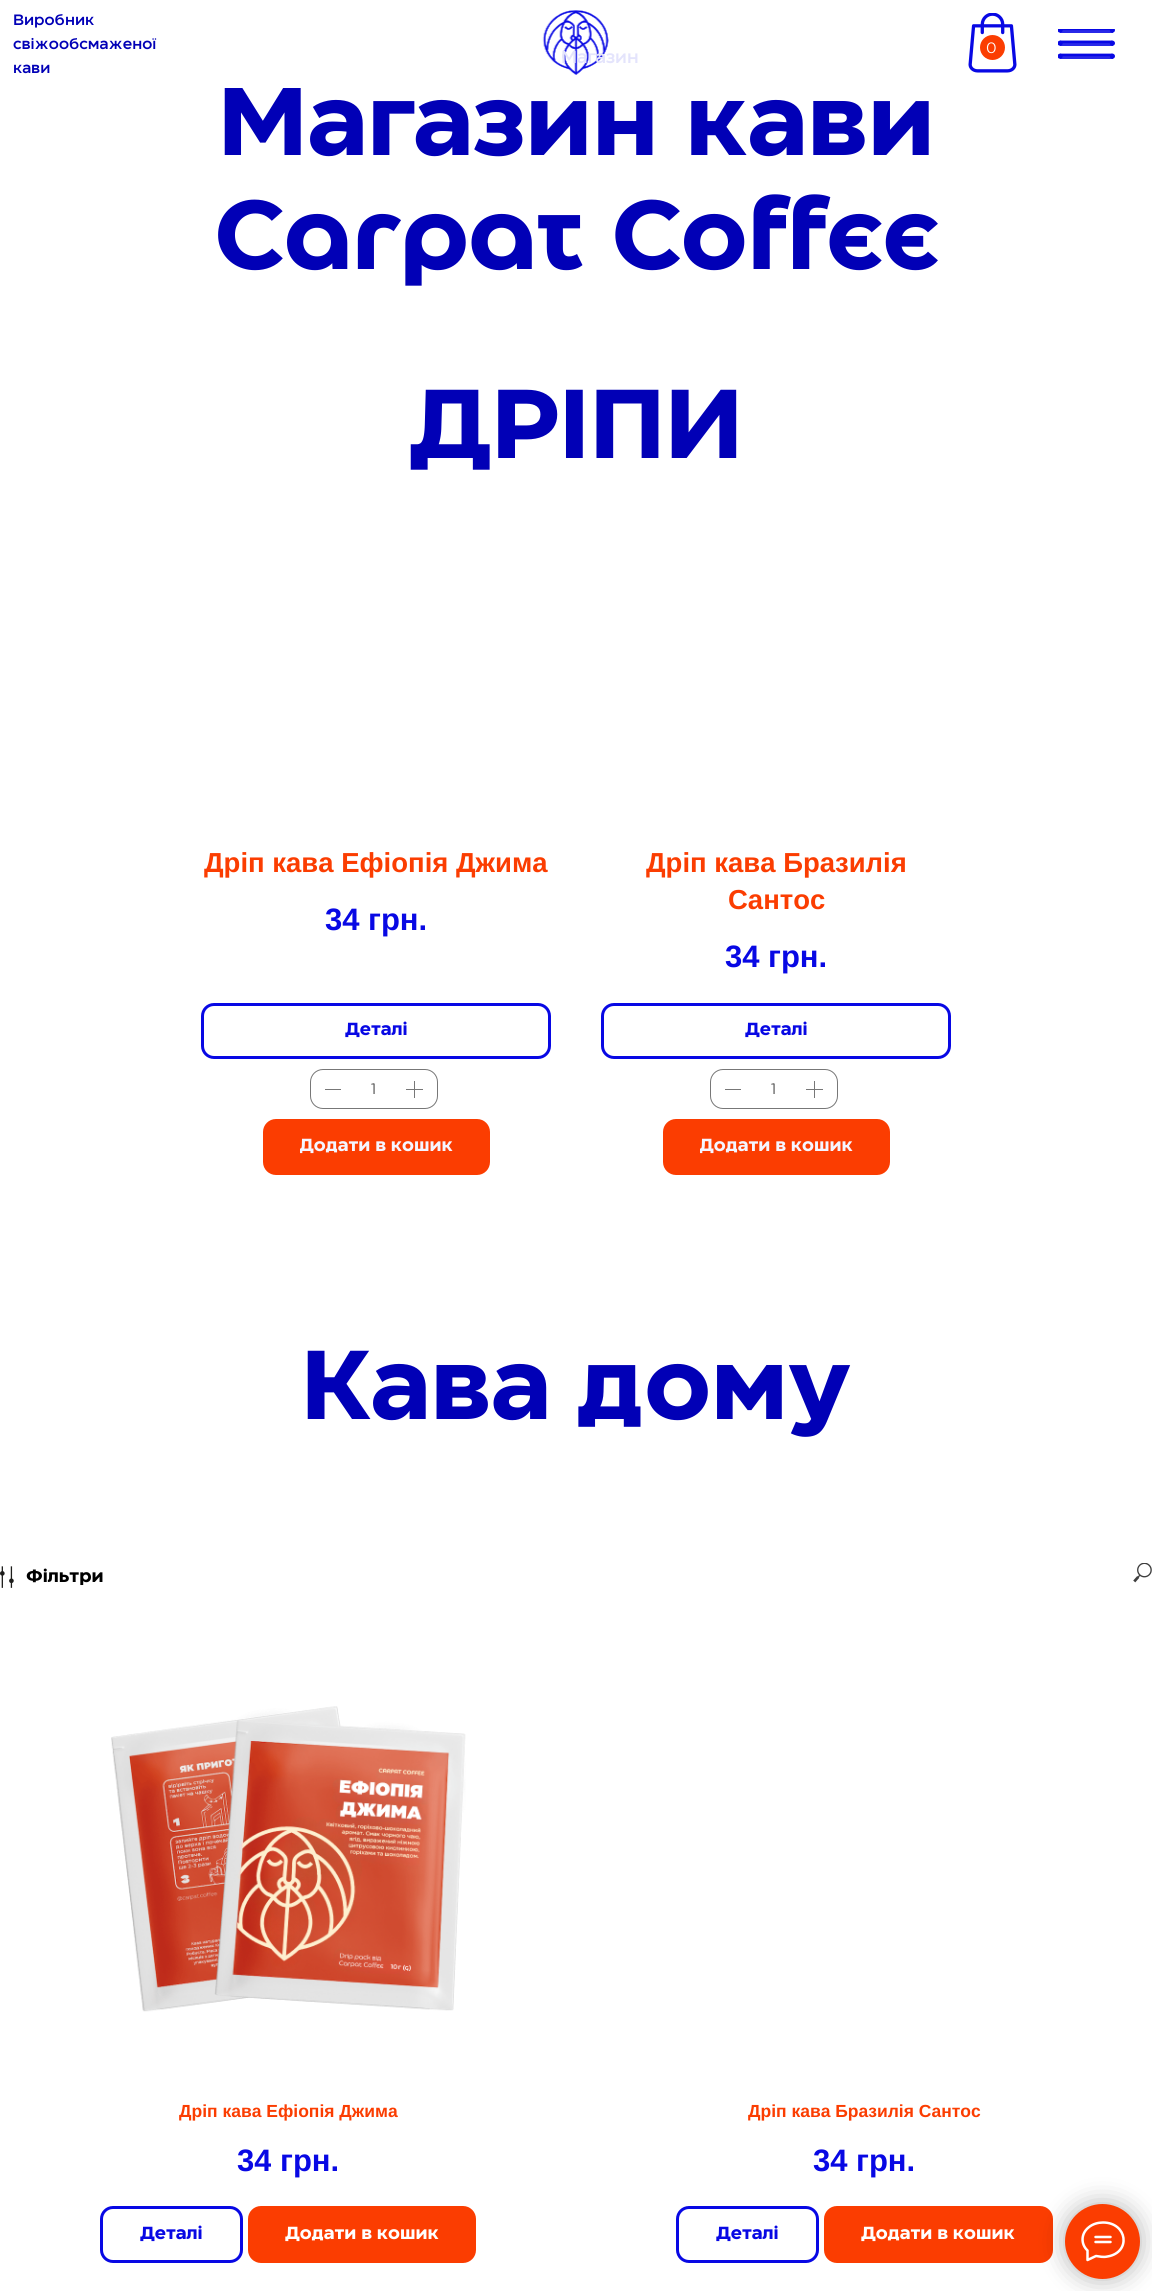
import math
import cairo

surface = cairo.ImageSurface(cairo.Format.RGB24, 1152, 2291)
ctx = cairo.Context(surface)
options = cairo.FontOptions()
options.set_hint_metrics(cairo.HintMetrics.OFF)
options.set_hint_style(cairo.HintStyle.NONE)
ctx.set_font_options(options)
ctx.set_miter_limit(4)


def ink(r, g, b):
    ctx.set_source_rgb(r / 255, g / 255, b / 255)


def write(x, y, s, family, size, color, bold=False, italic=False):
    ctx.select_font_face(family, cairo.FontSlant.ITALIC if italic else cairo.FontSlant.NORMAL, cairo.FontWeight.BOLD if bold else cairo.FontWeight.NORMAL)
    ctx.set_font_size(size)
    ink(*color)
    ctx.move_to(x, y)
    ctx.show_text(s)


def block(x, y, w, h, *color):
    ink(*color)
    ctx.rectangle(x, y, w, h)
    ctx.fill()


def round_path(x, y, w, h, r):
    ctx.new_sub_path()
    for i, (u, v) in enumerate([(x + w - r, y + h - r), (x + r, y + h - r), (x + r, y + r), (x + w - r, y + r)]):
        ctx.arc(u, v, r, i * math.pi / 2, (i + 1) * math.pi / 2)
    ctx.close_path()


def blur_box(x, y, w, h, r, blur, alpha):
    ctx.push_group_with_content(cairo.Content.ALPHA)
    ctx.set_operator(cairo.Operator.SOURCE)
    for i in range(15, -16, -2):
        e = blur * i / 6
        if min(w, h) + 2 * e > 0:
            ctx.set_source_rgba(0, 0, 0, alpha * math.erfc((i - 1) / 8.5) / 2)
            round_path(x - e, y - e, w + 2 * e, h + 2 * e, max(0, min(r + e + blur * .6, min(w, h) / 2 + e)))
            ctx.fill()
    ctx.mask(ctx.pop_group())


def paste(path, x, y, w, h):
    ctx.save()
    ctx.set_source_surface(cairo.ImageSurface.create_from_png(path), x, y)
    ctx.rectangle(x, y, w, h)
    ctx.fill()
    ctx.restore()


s1 = dict(family="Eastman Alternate", size=97.5, color=(1, 0, 182), bold=True)
s2 = dict(family="Eastman Alternate Medium", size=15, color=(1, 0, 182))
s3 = dict(family="Eastman Alternate", size=15, color=(255, 255, 255))
s4 = dict(family="Eastman Alternate Medium", size=17.5, color=(228, 228, 252))
s5 = dict(family="Liberation Sans", size=27.5, color=(251, 61, 1), bold=True)
s6 = dict(family="Liberation Sans", size=31, color=(8, 8, 228), bold=True)
s7 = dict(family="Eastman Alternate", size=17.5, color=(8, 8, 228), bold=True)
s8 = dict(family="Eastman Alternate Light", size=15, color=(0, 0, 0))
s9 = dict(family="Eastman Alternate", size=17.5, color=(245, 245, 255), bold=True)
s10 = dict(family="Eastman Alternate", size=17.5, color=(0, 0, 0), bold=True)
s11 = dict(family="Liberation Sans", size=17.5, color=(251, 61, 1), bold=True)
s12 = dict(family="Eastman Alternate", size=17.5, color=(255, 255, 255), bold=True)

ink(255, 255, 255)
ctx.paint()
write(218, 155, "Магазин кави", **s1)
block(224, 86, 77, 2, 255, 255, 255)
write(13, 25, "Виробник", **s2)
write(13, 49, "свіжообсмаженої", **s2)
write(13, 73, "кави", **s2)
paste("pic1.png", 542, 10, 67, 65)
paste("pic2.png", 968, 13, 49, 60)
paste("pic3.png", 1058, 29, 57, 30)
ink(251, 61, 1)
ctx.arc(992.5, 47.5, 12.5, 0, 2 * math.pi)
ctx.fill()
write(986, 53, "0", **s3)
write(561, 63, "Магазин", **s4)
write(214, 269, "Carpat Coffee", **s1)
write(409, 458, "ДРІПИ", **s1)
write(204, 872, "Дріп кава Ефіопія Джима", **s5)
write(325, 930, "34", **s6)
write(368, 930, "грн.", **s6)
round_path(202.5, 1004.5, 347, 53, 11.5)
ctx.set_line_width(3)
ctx.stroke()
write(345, 1035, "Деталі", **s7)
round_path(310.5, 1069.5, 127, 39, 12.5)
ink(119, 119, 119)
ctx.set_line_width(1)
ctx.stroke()
block(325, 1089, 16, 1, 119, 119, 119)
write(371, 1094, "1", **s8)
block(414, 1081, 1, 17, 119, 119, 119)
block(406, 1089, 17, 1, 119, 119, 119)
ink(251, 61, 1)
round_path(263, 1119, 227, 56, 13)
ctx.fill()
ctx.save()
ctx.rectangle(300, 1135, 153, 25)
ctx.clip()
write(299, 1151, "Додати в кошик", **s9)
ctx.restore()
write(646, 872, "Дріп кава Бразилія", **s5)
write(728, 909, "Сантос", **s5)
write(725, 967, "34", **s6)
write(768, 967, "грн.", **s6)
round_path(602.5, 1004.5, 347, 53, 11.5)
ctx.set_line_width(3)
ctx.stroke()
write(745, 1035, "Деталі", **s7)
round_path(710.5, 1069.5, 127, 39, 12.5)
ink(119, 119, 119)
ctx.set_line_width(1)
ctx.stroke()
block(725, 1089, 16, 1, 119, 119, 119)
write(771, 1094, "1", **s8)
block(814, 1081, 1, 17, 119, 119, 119)
block(806, 1089, 17, 1, 119, 119, 119)
ink(251, 61, 1)
round_path(663, 1119, 227, 56, 13)
ctx.fill()
ctx.save()
ctx.rectangle(700, 1135, 153, 25)
ctx.clip()
write(699, 1151, "Додати в кошик", **s9)
ctx.restore()
write(301, 1419, "Кава дому", **s1)
paste("pic4.png", 0, 1566, 14, 22)
write(26, 1582, "Фільтри", **s10)
paste("pic5.png", 1133, 1563, 19, 20)
paste("pic6.png", 111, 1706, 355, 306)
write(179, 2117, "Дріп кава Ефіопія Джима", **s11)
ctx.save()
ctx.rectangle(236, 2140, 35, 41)
ctx.clip()
write(237, 2171, "34", **s6)
ctx.restore()
write(280, 2171, "грн.", **s6)
round_path(101.5, 2207.5, 140, 54, 11.5)
ctx.set_line_width(3)
ctx.stroke()
write(140, 2239, "Деталі", **s7)
ink(251, 61, 1)
round_path(248, 2206, 228, 57, 13)
ctx.fill()
write(285, 2239, "Додати в кошик", **s12)
write(748, 2117, "Дріп кава Бразилія Сантос", **s11)
write(813, 2171, "34", **s6)
write(856, 2171, "грн.", **s6)
round_path(677.5, 2207.5, 140, 54, 11.5)
ctx.stroke()
write(716, 2239, "Деталі", **s7)
ink(251, 61, 1)
round_path(824, 2206, 229, 57, 13)
ctx.fill()
write(861, 2239, "Додати в кошик", **s12)
ink(0, 0, 0)
blur_box(1065, 2204, 75, 75, 37.5, 12.5, 0.3)
ink(251, 61, 1)
ctx.arc(1102.5, 2241.5, 37.5, 0, 2 * math.pi)
ctx.fill()
ctx.new_path()
ctx.move_to(1095.5, 2237)
ctx.line_to(1110.5, 2237)
ctx.move_to(1095.5, 2242)
ctx.line_to(1110.5, 2242)
ctx.move_to(1087.5, 2250.5)
ctx.curve_to(1080.5, 2244, 1081, 2233.5, 1088.5, 2227.5)
ctx.curve_to(1092.5, 2224, 1098, 2222.5, 1103, 2222.5)
ctx.curve_to(1127.5, 2222.5, 1131.5, 2252.5, 1107.5, 2256.5)
ctx.curve_to(1103, 2257.5, 1100, 2256.5, 1096, 2256)
ctx.line_to(1087.5, 2260)
ctx.close_path()
ink(255, 255, 255)
ctx.set_line_width(2.5)
ctx.set_line_cap(cairo.LineCap.ROUND)
ctx.set_line_join(cairo.LineJoin.ROUND)
ctx.stroke()
surface.write_to_png("screenshot.png")
